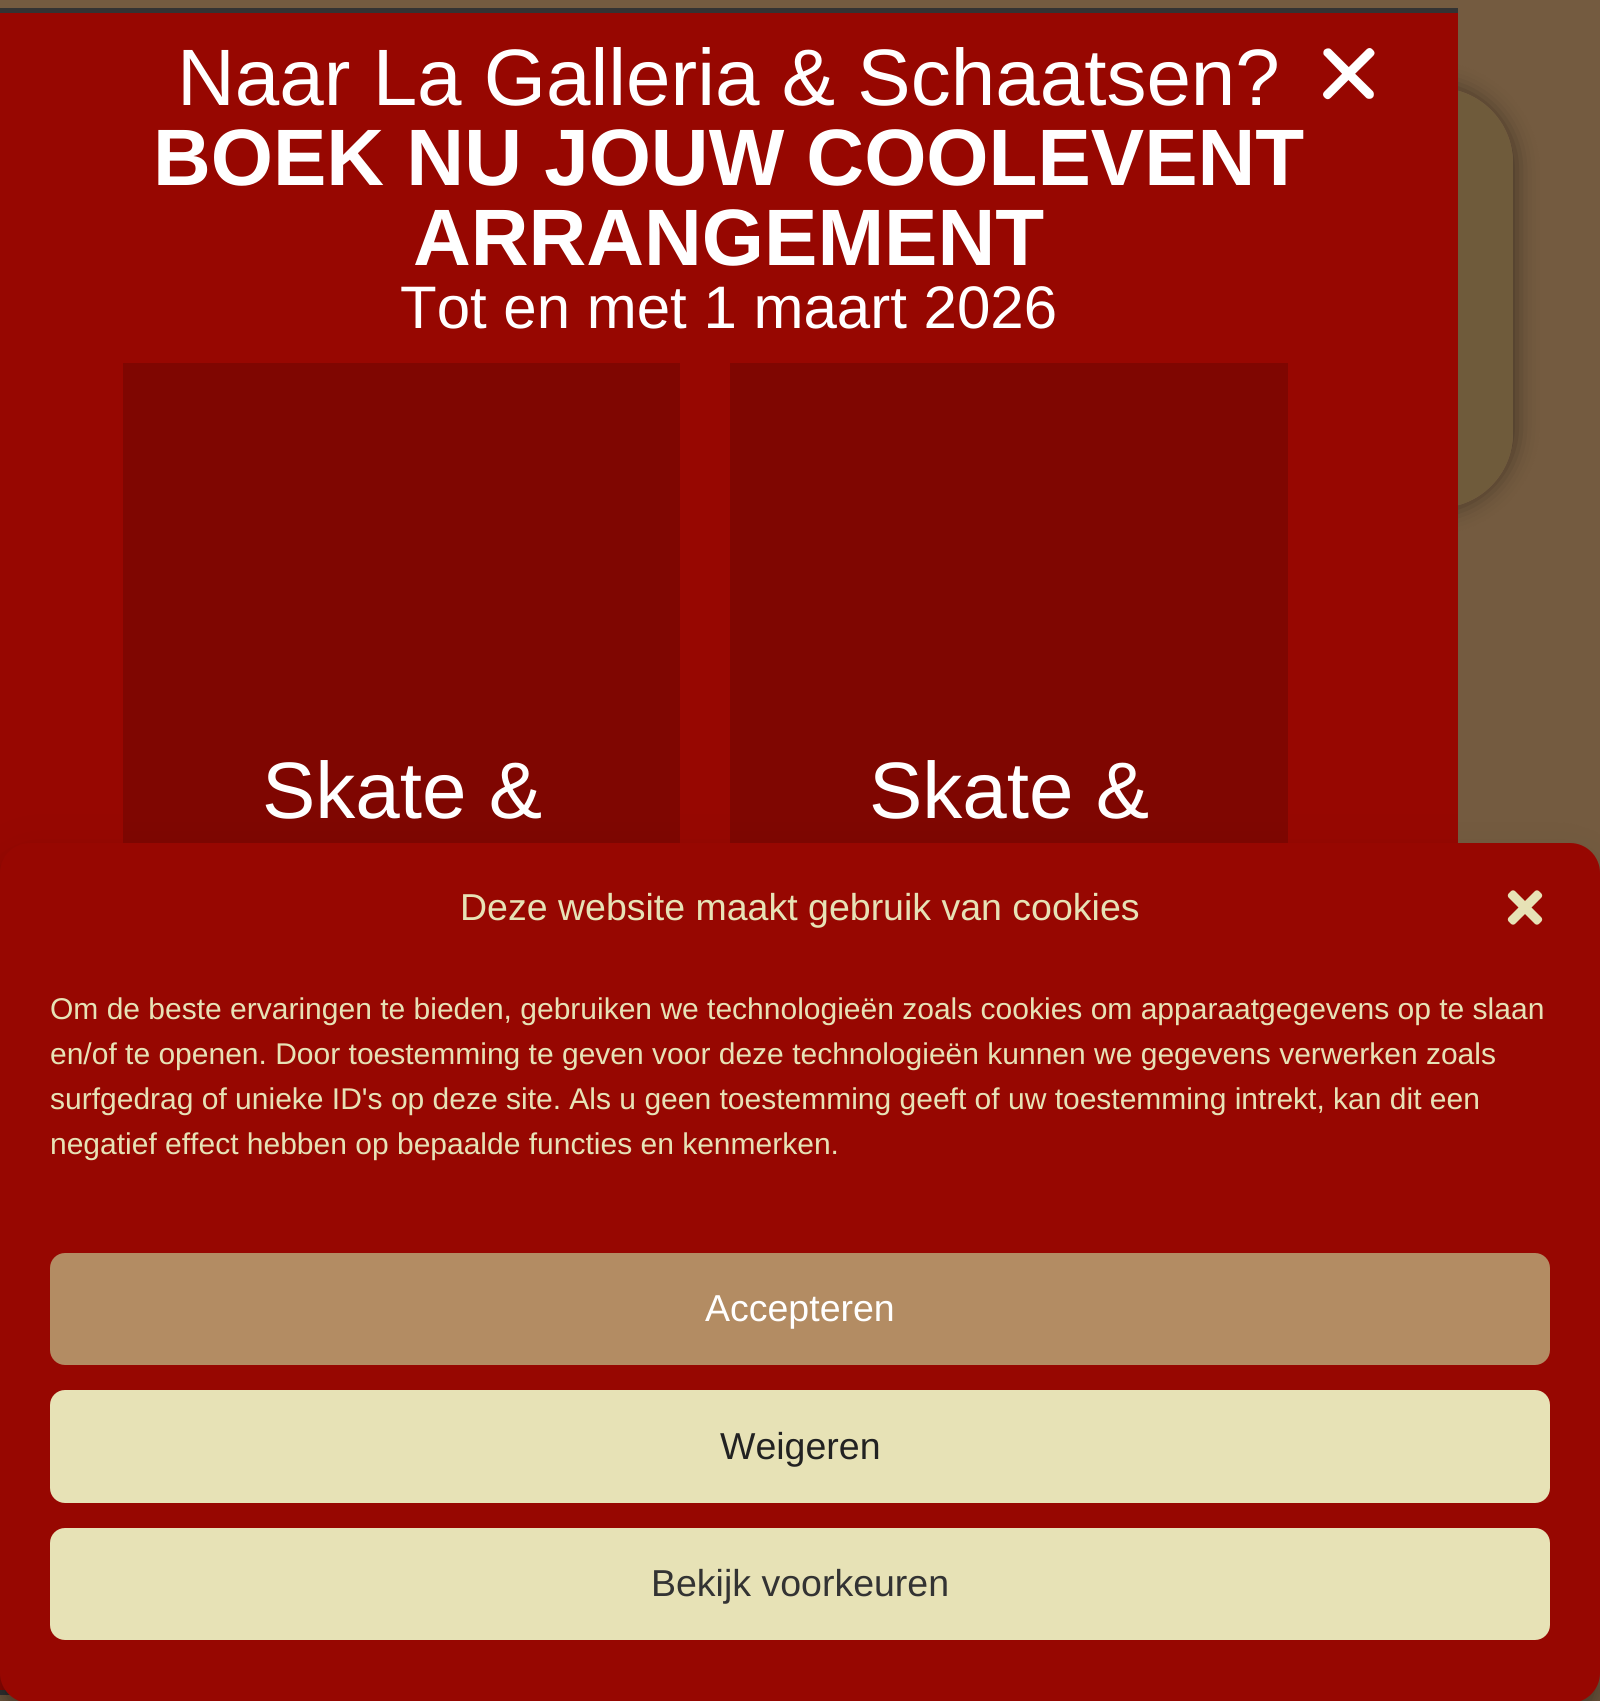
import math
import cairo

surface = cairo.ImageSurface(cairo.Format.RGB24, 1600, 1701)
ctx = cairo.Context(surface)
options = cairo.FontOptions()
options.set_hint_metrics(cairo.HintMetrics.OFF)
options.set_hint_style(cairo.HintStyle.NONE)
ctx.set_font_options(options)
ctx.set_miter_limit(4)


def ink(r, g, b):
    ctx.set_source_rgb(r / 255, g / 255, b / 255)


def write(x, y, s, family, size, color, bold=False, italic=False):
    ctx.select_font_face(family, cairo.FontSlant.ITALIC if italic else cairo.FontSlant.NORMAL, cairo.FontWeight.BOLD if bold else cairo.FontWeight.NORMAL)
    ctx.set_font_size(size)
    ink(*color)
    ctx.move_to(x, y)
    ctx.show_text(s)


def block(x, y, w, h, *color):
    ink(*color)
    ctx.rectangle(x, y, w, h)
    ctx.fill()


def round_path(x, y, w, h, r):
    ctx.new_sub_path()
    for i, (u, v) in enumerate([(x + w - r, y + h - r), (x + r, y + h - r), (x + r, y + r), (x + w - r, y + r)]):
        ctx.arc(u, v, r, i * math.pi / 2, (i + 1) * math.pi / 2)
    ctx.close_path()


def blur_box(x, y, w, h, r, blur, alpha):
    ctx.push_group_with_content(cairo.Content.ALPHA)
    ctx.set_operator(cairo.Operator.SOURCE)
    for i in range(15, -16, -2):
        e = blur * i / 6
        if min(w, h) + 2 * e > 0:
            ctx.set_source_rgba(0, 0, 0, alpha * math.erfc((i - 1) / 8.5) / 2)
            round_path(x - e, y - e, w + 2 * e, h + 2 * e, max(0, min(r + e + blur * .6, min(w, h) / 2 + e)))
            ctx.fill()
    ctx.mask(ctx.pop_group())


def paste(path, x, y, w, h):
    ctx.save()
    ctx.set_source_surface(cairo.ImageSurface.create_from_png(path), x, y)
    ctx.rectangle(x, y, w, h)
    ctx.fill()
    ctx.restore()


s1 = dict(family="Liberation Sans", size=80, color=(255, 255, 255))
s2 = dict(family="Liberation Sans", size=80, color=(255, 255, 255), bold=True)
s3 = dict(family="Liberation Sans", size=60, color=(255, 255, 255))
s4 = dict(family="Liberation Sans", size=37.5, color=(231, 226, 182))
s5 = dict(family="Liberation Sans", size=30, color=(231, 226, 182))
s6 = dict(family="Liberation Sans", size=37.5, color=(255, 255, 255))
s7 = dict(family="Liberation Sans", size=37.5, color=(34, 34, 34))
s8 = dict(family="Liberation Sans", size=37.5, color=(51, 51, 51))

ink(116, 91, 64)
ctx.paint()
block(0, 8, 1458, 5, 51, 51, 51)
block(0, 1690, 10, 5, 51, 51, 51)
ctx.save()
ctx.set_fill_rule(cairo.FillRule.EVEN_ODD)
ctx.new_path()
ctx.move_to(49, 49)
ctx.line_to(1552, 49)
ctx.line_to(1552, 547)
ctx.line_to(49, 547)
ctx.close_path()
ctx.move_to(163, 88)
ctx.line_to(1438, 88)
ctx.curve_to(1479.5, 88, 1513, 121.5, 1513, 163)
ctx.line_to(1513, 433)
ctx.curve_to(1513, 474.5, 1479.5, 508, 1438, 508)
ctx.line_to(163, 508)
ctx.curve_to(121.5, 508, 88, 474.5, 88, 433)
ctx.line_to(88, 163)
ctx.curve_to(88, 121.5, 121.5, 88, 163, 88)
ctx.close_path()
ctx.clip()
ink(0, 0, 0)
blur_box(88, 88, 1425, 420, 75, 12.5, 0.5)
ctx.restore()
ctx.set_source_rgba(0.435, 0.357, 0.231, 0.87)
round_path(88, 88, 1425, 420, 75)
ctx.fill()
block(0, 13, 1458, 1677, 151, 7, 1)
write(177, 105, "Naar La Galleria & Schaatsen?", **s1)
write(153, 185, "BOEK NU JOUW COOLEVENT", **s2)
write(413, 265, "ARRANGEMENT", **s2)
write(400, 328, "Tot en met 1 maart 2026", **s3)
block(123, 363, 557, 480, 127, 6, 1)
write(262, 818, "Skate &", **s1)
block(730, 363, 558, 480, 127, 6, 1)
write(869, 818, "Skate &", **s1)
paste("pic1.png", 1323, 48, 52, 52)
ink(0, 0, 0)
blur_box(0, 858, 1600, 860, 30, 7.5, 0.23)
blur_box(0, 868, 1600, 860, 30, 25, 0.19)
ink(151, 7, 1)
round_path(0, 843, 1600, 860, 30)
ctx.fill()
write(460, 920, "Deze website maakt gebruik van cookies", **s4)
paste("pic2.png", 1507, 890, 36, 35)
write(50, 1019, "Om de beste ervaringen te bieden, gebruiken we technologieën zoals cookies om apparaatgegevens op te slaan", **s5)
write(50, 1064, "en/of te openen. Door toestemming te geven voor deze technologieën kunnen we gegevens verwerken zoals", **s5)
write(50, 1109, "surfgedrag of unieke ID's op deze site. Als u geen toestemming geeft of uw toestemming intrekt, kan dit een", **s5)
write(50, 1154, "negatief effect hebben op bepaalde functies en kenmerken.", **s5)
ink(179, 140, 99)
round_path(51.5, 1254.5, 1497, 109, 13.5)
ctx.fill_preserve()
ctx.set_line_width(3)
ctx.stroke()
write(705, 1321, "Accepteren", **s6)
ink(231, 226, 182)
round_path(51.5, 1391.5, 1497, 110, 13.5)
ctx.fill_preserve()
ctx.stroke()
write(720, 1459, "Weigeren", **s7)
ink(231, 226, 182)
round_path(51.5, 1529.5, 1497, 109, 13.5)
ctx.fill_preserve()
ctx.stroke()
write(651, 1596, "Bekijk voorkeuren", **s8)
surface.write_to_png("screenshot.png")
